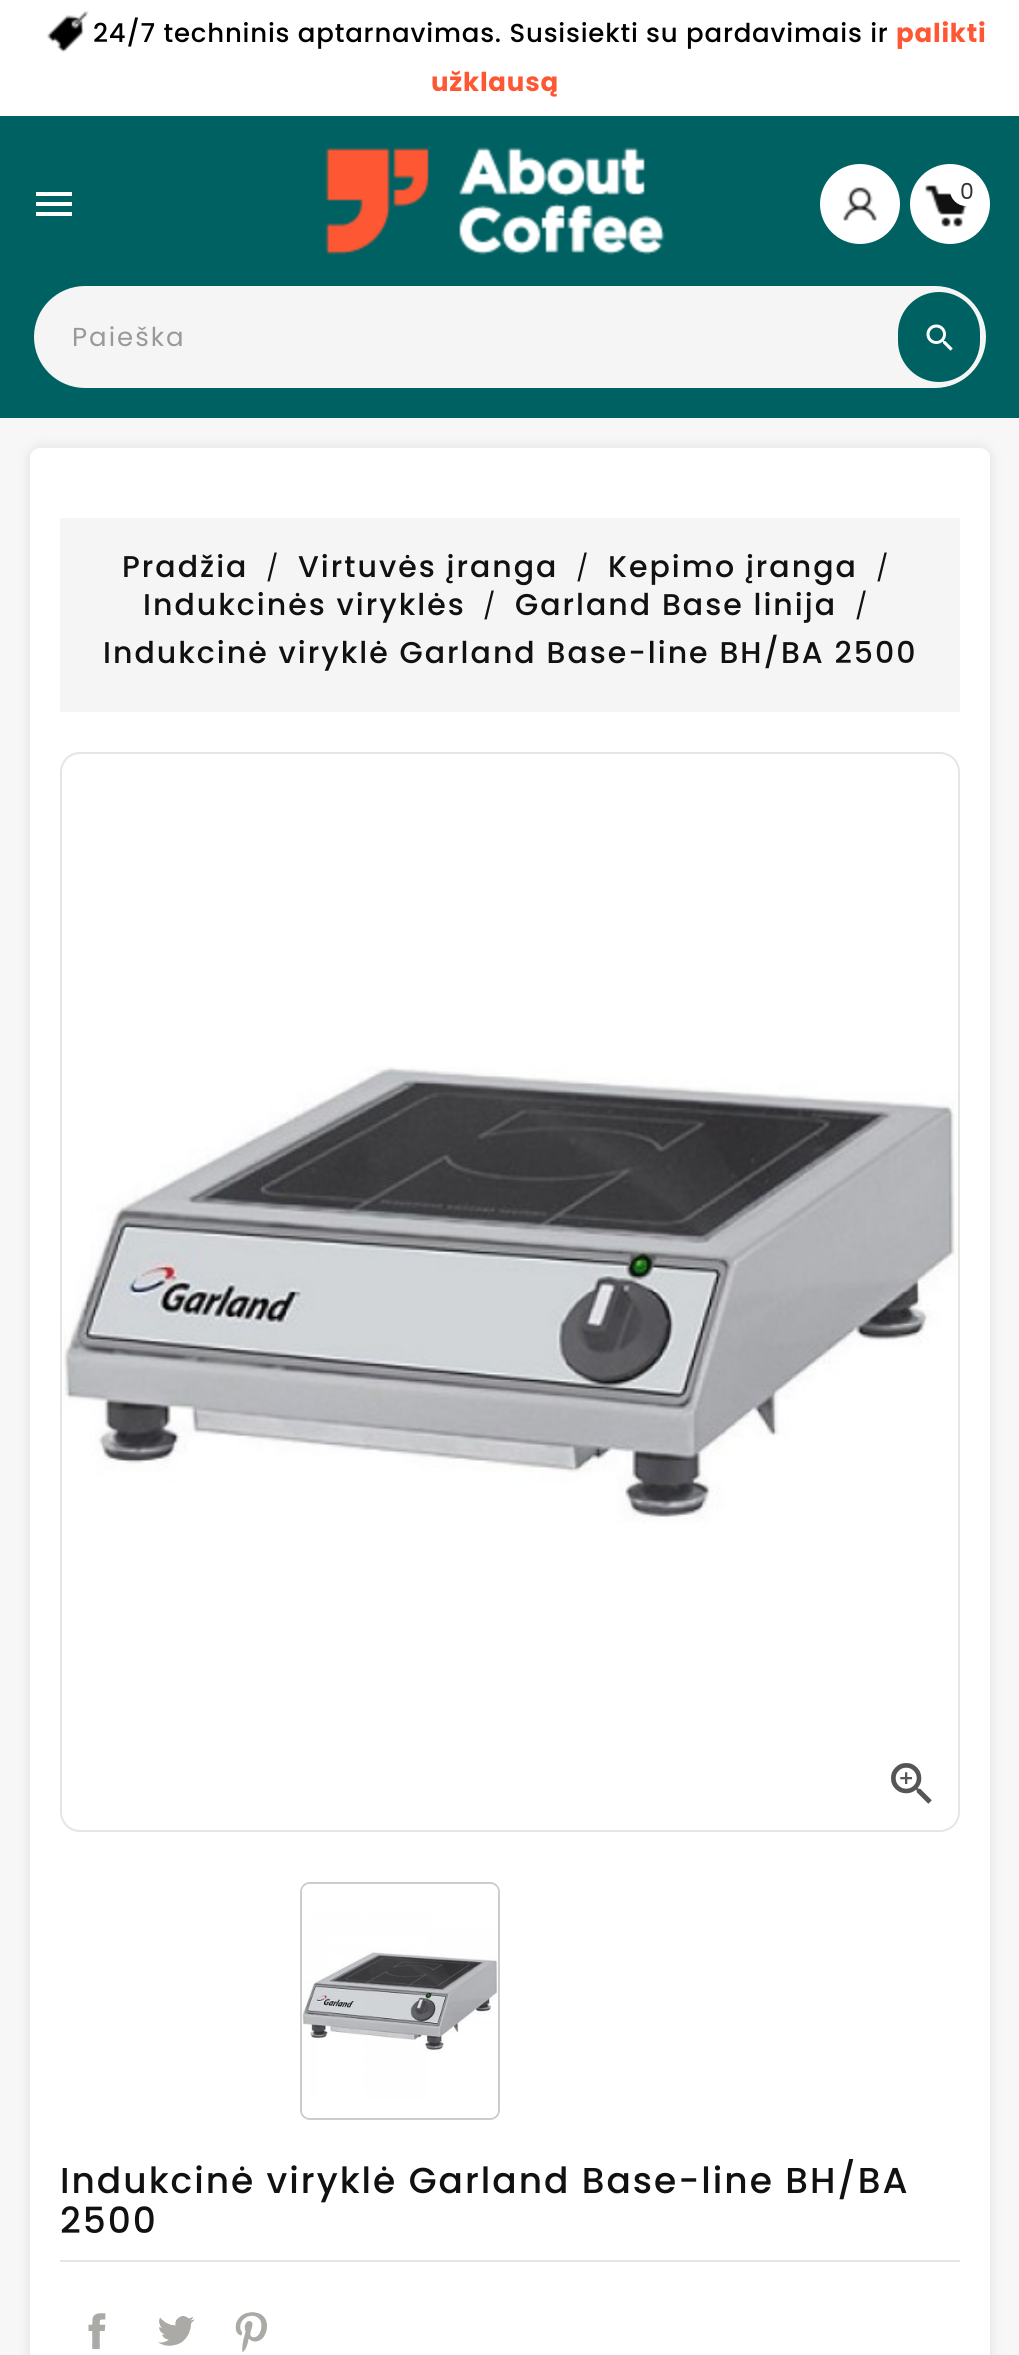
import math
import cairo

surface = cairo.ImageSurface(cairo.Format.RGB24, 1019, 2355)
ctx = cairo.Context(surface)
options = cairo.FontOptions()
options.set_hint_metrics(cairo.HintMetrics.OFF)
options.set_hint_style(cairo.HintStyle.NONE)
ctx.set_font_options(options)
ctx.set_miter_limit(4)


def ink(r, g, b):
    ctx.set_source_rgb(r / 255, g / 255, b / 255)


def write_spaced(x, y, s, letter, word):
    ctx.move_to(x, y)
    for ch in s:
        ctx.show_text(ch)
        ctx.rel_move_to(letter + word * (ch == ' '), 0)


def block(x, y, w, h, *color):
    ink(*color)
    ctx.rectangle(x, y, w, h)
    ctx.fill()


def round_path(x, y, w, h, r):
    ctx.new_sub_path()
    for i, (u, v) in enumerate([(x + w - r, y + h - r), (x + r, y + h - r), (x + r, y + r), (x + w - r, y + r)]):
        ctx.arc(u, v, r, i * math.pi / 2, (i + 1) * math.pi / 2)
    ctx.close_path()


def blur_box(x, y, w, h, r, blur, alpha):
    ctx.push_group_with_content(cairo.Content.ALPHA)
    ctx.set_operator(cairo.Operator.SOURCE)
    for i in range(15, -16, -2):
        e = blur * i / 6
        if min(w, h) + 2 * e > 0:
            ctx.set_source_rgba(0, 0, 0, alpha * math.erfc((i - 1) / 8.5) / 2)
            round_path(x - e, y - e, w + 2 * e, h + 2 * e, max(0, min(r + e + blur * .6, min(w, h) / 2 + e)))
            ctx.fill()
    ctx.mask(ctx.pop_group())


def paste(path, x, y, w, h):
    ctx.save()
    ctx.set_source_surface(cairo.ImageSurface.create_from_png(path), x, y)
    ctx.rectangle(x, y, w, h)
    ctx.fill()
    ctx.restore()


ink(247, 247, 247)
ctx.paint()
block(0, 0, 1019, 116, 255, 255, 255)
paste("pic1.png", 47, 11, 42, 42)
ctx.select_font_face("Poppins Medium")
ctx.set_font_size(26)
ink(0, 0, 0)
write_spaced(93, 42, "24/7 techninis aptarnavimas. Susisiekti su pardavimais ir", 0.8, 0)
ctx.select_font_face("Poppins", cairo.FontSlant.NORMAL, cairo.FontWeight.BOLD)
ink(254, 87, 51)
write_spaced(896, 42, "palikti", 0.8, 0)
write_spaced(431, 91, "užklausą", 0.8, 0)
block(0, 116, 1019, 302, 0, 97, 99)
ink(255, 255, 255)
ctx.new_path()
ctx.move_to(36, 192)
ctx.line_to(72, 192)
ctx.line_to(72, 196)
ctx.line_to(36, 196)
ctx.close_path()
ctx.move_to(36, 206)
ctx.line_to(36, 202)
ctx.line_to(72, 202)
ctx.line_to(72, 206)
ctx.close_path()
ctx.move_to(36, 216)
ctx.line_to(36, 212)
ctx.line_to(72, 212)
ctx.line_to(72, 216)
ctx.close_path()
ctx.fill()
ctx.arc(860, 204, 40, 0, 2 * math.pi)
ctx.fill()
paste("pic2.png", 843, 187, 34, 34)
ctx.arc(950, 204, 40, 0, 2 * math.pi)
ctx.fill()
paste("pic3.png", 925, 185, 42, 42)
ctx.arc(966, 190, 16, 0, 2 * math.pi)
ctx.fill()
ctx.select_font_face("Poppins")
ctx.set_font_size(22)
ink(51, 51, 51)
write_spaced(960, 199, "0", 2, 0)
paste("pic4.png", 325, 147, 340, 108)
ink(245, 245, 245)
round_path(34, 286, 952, 102, 51)
ctx.fill()
ctx.set_font_size(26)
ink(153, 153, 153)
write_spaced(72, 346, "Paieška", 2, 0)
ink(0, 97, 99)
round_path(898, 292, 82, 90, 41)
ctx.fill()
paste("pic5.png", 926, 324, 27, 27)
ink(229, 229, 229)
blur_box(28, 446, 964, 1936, 12, 5, 1)
ink(255, 255, 255)
ctx.new_path()
ctx.move_to(40, 448)
ctx.line_to(980, 448)
ctx.curve_to(985.5, 448, 990, 452.5, 990, 458)
ctx.line_to(990, 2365)
ctx.line_to(30, 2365)
ctx.line_to(30, 458)
ctx.curve_to(30, 452.5, 34.5, 448, 40, 448)
ctx.close_path()
ctx.fill()
block(60, 518, 900, 194, 245, 245, 245)
ctx.select_font_face("Poppins Medium")
ctx.set_font_size(30)
ink(17, 17, 17)
write_spaced(122, 577, "Pradžia", 2, 0)
ctx.select_font_face("Poppins")
ctx.set_font_size(26)
write_spaced(266, 577, "/", 2, 0)
ctx.select_font_face("Poppins Medium")
ctx.set_font_size(30)
write_spaced(298, 577, "Virtuvės įranga", 2, 0)
ctx.select_font_face("Poppins")
ctx.set_font_size(26)
write_spaced(576, 577, "/", 2, 0)
ctx.select_font_face("Poppins Medium")
ctx.set_font_size(30)
write_spaced(608, 577, "Kepimo įranga", 2, 0)
ctx.select_font_face("Poppins")
ctx.set_font_size(26)
write_spaced(876, 577, "/", 2, 0)
ctx.select_font_face("Poppins Medium")
ctx.set_font_size(30)
write_spaced(143, 615, "Indukcinės viryklės", 2, 0)
ctx.select_font_face("Poppins")
ctx.set_font_size(26)
write_spaced(483, 615, "/", 2, 0)
ctx.select_font_face("Poppins Medium")
ctx.set_font_size(30)
write_spaced(515, 615, "Garland Base linija", 2, 0)
ctx.select_font_face("Poppins")
ctx.set_font_size(26)
write_spaced(855, 615, "/", 2, 0)
ctx.select_font_face("Poppins Medium")
ctx.set_font_size(30)
write_spaced(103, 663, "Indukcinė viryklė Garland Base-line BH/BA 2500", 2, 0)
round_path(61, 753, 898, 1078, 19)
ink(229, 229, 229)
ctx.stroke()
paste("pic6.png", 62, 1066, 896, 457)
paste("pic7.png", 891, 1763, 41, 41)
round_path(301, 1883, 198, 236, 9)
ink(204, 204, 204)
ctx.stroke()
paste("pic8.png", 302, 1884, 196, 234)
block(60, 2260, 900, 2, 229, 229, 229)
ctx.set_font_size(36)
ink(17, 17, 17)
write_spaced(60, 2193, "Indukcinė viryklė Garland Base-line BH/BA", 2, 0)
write_spaced(60, 2233, "2500", 2, 0)
paste("pic9.png", 88, 2313, 18, 36)
paste("pic10.png", 158, 2316, 37, 30)
paste("pic11.png", 235, 2312, 32, 41)
surface.write_to_png("screenshot.png")
